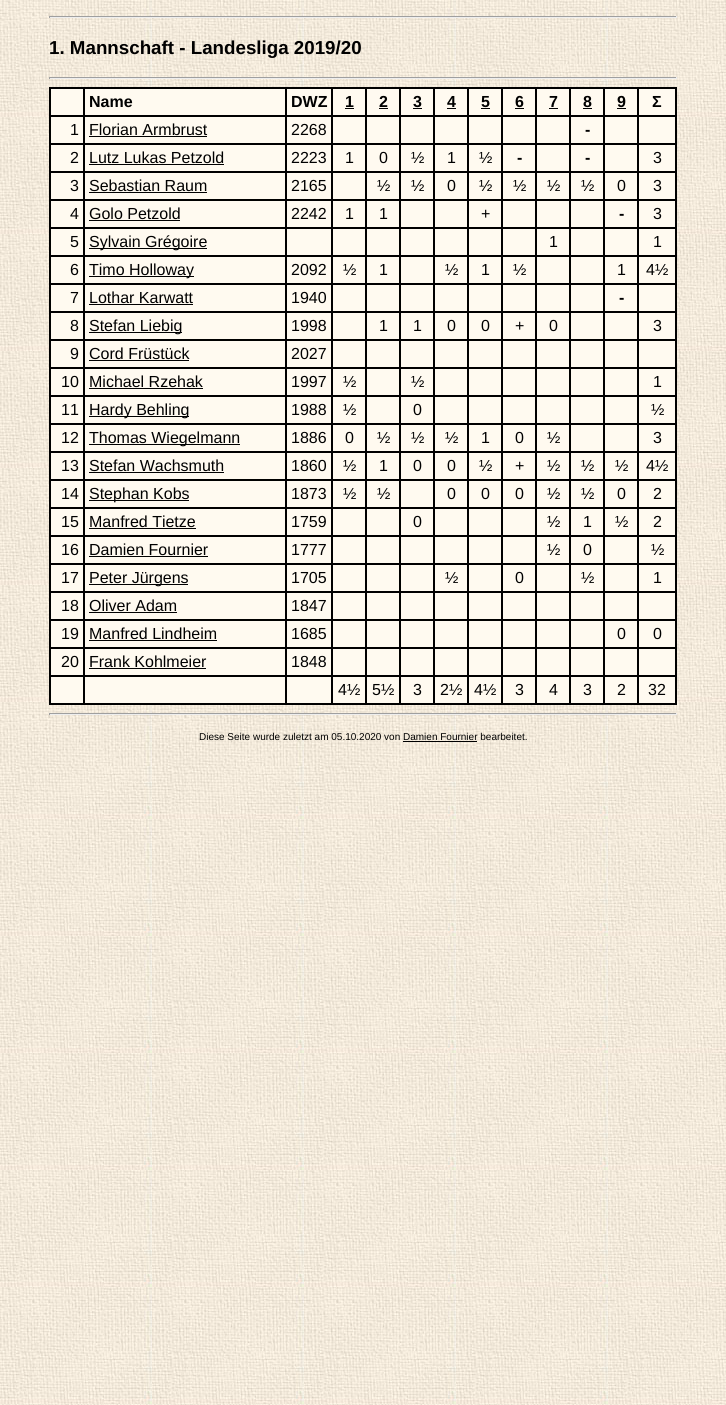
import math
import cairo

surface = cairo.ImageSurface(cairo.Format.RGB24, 726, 1405)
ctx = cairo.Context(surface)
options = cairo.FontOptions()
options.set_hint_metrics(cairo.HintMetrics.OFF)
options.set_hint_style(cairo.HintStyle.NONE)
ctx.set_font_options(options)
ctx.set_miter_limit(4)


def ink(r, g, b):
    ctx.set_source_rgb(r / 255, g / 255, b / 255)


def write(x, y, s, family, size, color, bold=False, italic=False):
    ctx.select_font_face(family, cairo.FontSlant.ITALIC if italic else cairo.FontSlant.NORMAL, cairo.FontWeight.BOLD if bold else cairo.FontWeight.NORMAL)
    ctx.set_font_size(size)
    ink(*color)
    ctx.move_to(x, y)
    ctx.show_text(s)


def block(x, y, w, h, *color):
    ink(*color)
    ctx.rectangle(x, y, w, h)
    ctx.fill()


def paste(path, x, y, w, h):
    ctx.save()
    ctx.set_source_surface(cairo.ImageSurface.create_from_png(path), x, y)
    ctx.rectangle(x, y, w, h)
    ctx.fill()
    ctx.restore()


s1 = dict(family="Liberation Sans", size=18.75, color=(0, 0, 0), bold=True)
s2 = dict(family="Liberation Sans", size=16, color=(0, 0, 0), bold=True)
s3 = dict(family="Liberation Sans", size=16, color=(0, 0, 0))
s4 = dict(family="Liberation Sans", size=10, color=(0, 0, 0))

ink(255, 255, 255)
ctx.paint()
paste("pic1.png", 0, 0, 726, 1405)
block(49, 16, 628, 1, 159, 159, 159)
block(676, 16, 1, 2, 238, 238, 238)
block(49, 17, 628, 1, 238, 238, 238)
block(49, 16, 1, 2, 159, 159, 159)
write(49, 54, "1. Mannschaft - Landesliga 2019/20", **s1)
block(49, 77, 628, 1, 159, 159, 159)
block(676, 77, 1, 2, 238, 238, 238)
block(49, 78, 628, 1, 238, 238, 238)
block(49, 77, 1, 2, 159, 159, 159)
block(51, 89, 624, 614, 255, 250, 240)
ctx.rectangle(49.5, 87.5, 627, 617)
ink(0, 0, 0)
ctx.set_line_width(1)
ctx.stroke()
ctx.rectangle(50.5, 88.5, 33, 27)
ctx.stroke()
ctx.rectangle(84.5, 88.5, 201, 27)
ctx.stroke()
write(89, 107, "Name", **s2)
ctx.rectangle(286.5, 88.5, 45, 27)
ctx.stroke()
write(291, 107, "DWZ", **s2)
ctx.rectangle(332.5, 88.5, 33, 27)
ctx.stroke()
write(345, 107, "1", **s2)
block(345, 108, 9, 1, 0, 0, 0)
ctx.rectangle(366.5, 88.5, 33, 27)
ctx.stroke()
write(379, 107, "2", **s2)
block(379, 108, 9, 1, 0, 0, 0)
ctx.rectangle(400.5, 88.5, 33, 27)
ctx.stroke()
write(413, 107, "3", **s2)
block(413, 108, 9, 1, 0, 0, 0)
ctx.rectangle(434.5, 88.5, 33, 27)
ctx.stroke()
write(447, 107, "4", **s2)
block(447, 108, 9, 1, 0, 0, 0)
ctx.rectangle(468.5, 88.5, 33, 27)
ctx.stroke()
write(481, 107, "5", **s2)
block(481, 108, 9, 1, 0, 0, 0)
ctx.rectangle(502.5, 88.5, 33, 27)
ctx.stroke()
write(515, 107, "6", **s2)
block(515, 108, 9, 1, 0, 0, 0)
ctx.rectangle(536.5, 88.5, 33, 27)
ctx.stroke()
write(549, 107, "7", **s2)
block(549, 108, 9, 1, 0, 0, 0)
ctx.rectangle(570.5, 88.5, 33, 27)
ctx.stroke()
write(583, 107, "8", **s2)
block(583, 108, 9, 1, 0, 0, 0)
ctx.rectangle(604.5, 88.5, 33, 27)
ctx.stroke()
write(617, 107, "9", **s2)
block(617, 108, 9, 1, 0, 0, 0)
ctx.rectangle(638.5, 88.5, 37, 27)
ctx.stroke()
write(652, 107, "Σ", **s2)
ctx.rectangle(50.5, 116.5, 33, 27)
ctx.stroke()
write(70, 135, "1", **s3)
ctx.rectangle(84.5, 116.5, 201, 27)
ctx.stroke()
write(89, 135, "Florian Armbrust", **s3)
block(89, 136, 118, 1, 0, 0, 0)
ctx.rectangle(286.5, 116.5, 45, 27)
ctx.stroke()
write(291, 135, "2268", **s3)
ctx.rectangle(332.5, 116.5, 33, 27)
ctx.stroke()
ctx.rectangle(366.5, 116.5, 33, 27)
ctx.stroke()
ctx.rectangle(400.5, 116.5, 33, 27)
ctx.stroke()
ctx.rectangle(434.5, 116.5, 33, 27)
ctx.stroke()
ctx.rectangle(468.5, 116.5, 33, 27)
ctx.stroke()
ctx.rectangle(502.5, 116.5, 33, 27)
ctx.stroke()
ctx.rectangle(536.5, 116.5, 33, 27)
ctx.stroke()
ctx.rectangle(570.5, 116.5, 33, 27)
ctx.stroke()
write(585, 135, "-", **s2)
ctx.rectangle(604.5, 116.5, 33, 27)
ctx.stroke()
ctx.rectangle(638.5, 116.5, 37, 27)
ctx.stroke()
ctx.rectangle(50.5, 144.5, 33, 27)
ctx.stroke()
write(70, 163, "2", **s3)
ctx.rectangle(84.5, 144.5, 201, 27)
ctx.stroke()
write(89, 163, "Lutz Lukas Petzold", **s3)
block(89, 164, 135, 1, 0, 0, 0)
ctx.rectangle(286.5, 144.5, 45, 27)
ctx.stroke()
write(291, 163, "2223", **s3)
ctx.rectangle(332.5, 144.5, 33, 27)
ctx.stroke()
write(345, 163, "1", **s3)
ctx.rectangle(366.5, 144.5, 33, 27)
ctx.stroke()
write(379, 163, "0", **s3)
ctx.rectangle(400.5, 144.5, 33, 27)
ctx.stroke()
write(411, 163, "½", **s3)
ctx.rectangle(434.5, 144.5, 33, 27)
ctx.stroke()
write(447, 163, "1", **s3)
ctx.rectangle(468.5, 144.5, 33, 27)
ctx.stroke()
write(479, 163, "½", **s3)
ctx.rectangle(502.5, 144.5, 33, 27)
ctx.stroke()
write(517, 163, "-", **s2)
ctx.rectangle(536.5, 144.5, 33, 27)
ctx.stroke()
ctx.rectangle(570.5, 144.5, 33, 27)
ctx.stroke()
write(585, 163, "-", **s2)
ctx.rectangle(604.5, 144.5, 33, 27)
ctx.stroke()
ctx.rectangle(638.5, 144.5, 37, 27)
ctx.stroke()
write(653, 163, "3", **s3)
ctx.rectangle(50.5, 172.5, 33, 27)
ctx.stroke()
write(70, 191, "3", **s3)
ctx.rectangle(84.5, 172.5, 201, 27)
ctx.stroke()
write(89, 191, "Sebastian Raum", **s3)
block(89, 192, 118, 1, 0, 0, 0)
ctx.rectangle(286.5, 172.5, 45, 27)
ctx.stroke()
write(291, 191, "2165", **s3)
ctx.rectangle(332.5, 172.5, 33, 27)
ctx.stroke()
ctx.rectangle(366.5, 172.5, 33, 27)
ctx.stroke()
write(377, 191, "½", **s3)
ctx.rectangle(400.5, 172.5, 33, 27)
ctx.stroke()
write(411, 191, "½", **s3)
ctx.rectangle(434.5, 172.5, 33, 27)
ctx.stroke()
write(447, 191, "0", **s3)
ctx.rectangle(468.5, 172.5, 33, 27)
ctx.stroke()
write(479, 191, "½", **s3)
ctx.rectangle(502.5, 172.5, 33, 27)
ctx.stroke()
write(513, 191, "½", **s3)
ctx.rectangle(536.5, 172.5, 33, 27)
ctx.stroke()
write(547, 191, "½", **s3)
ctx.rectangle(570.5, 172.5, 33, 27)
ctx.stroke()
write(581, 191, "½", **s3)
ctx.rectangle(604.5, 172.5, 33, 27)
ctx.stroke()
write(617, 191, "0", **s3)
ctx.rectangle(638.5, 172.5, 37, 27)
ctx.stroke()
write(653, 191, "3", **s3)
ctx.rectangle(50.5, 200.5, 33, 27)
ctx.stroke()
write(70, 219, "4", **s3)
ctx.rectangle(84.5, 200.5, 201, 27)
ctx.stroke()
write(89, 219, "Golo Petzold", **s3)
block(89, 220, 91, 1, 0, 0, 0)
ctx.rectangle(286.5, 200.5, 45, 27)
ctx.stroke()
write(291, 219, "2242", **s3)
ctx.rectangle(332.5, 200.5, 33, 27)
ctx.stroke()
write(345, 219, "1", **s3)
ctx.rectangle(366.5, 200.5, 33, 27)
ctx.stroke()
write(379, 219, "1", **s3)
ctx.rectangle(400.5, 200.5, 33, 27)
ctx.stroke()
ctx.rectangle(434.5, 200.5, 33, 27)
ctx.stroke()
ctx.rectangle(468.5, 200.5, 33, 27)
ctx.stroke()
write(481, 219, "+", **s3)
ctx.rectangle(502.5, 200.5, 33, 27)
ctx.stroke()
ctx.rectangle(536.5, 200.5, 33, 27)
ctx.stroke()
ctx.rectangle(570.5, 200.5, 33, 27)
ctx.stroke()
ctx.rectangle(604.5, 200.5, 33, 27)
ctx.stroke()
write(619, 219, "-", **s2)
ctx.rectangle(638.5, 200.5, 37, 27)
ctx.stroke()
write(653, 219, "3", **s3)
ctx.rectangle(50.5, 228.5, 33, 27)
ctx.stroke()
write(70, 247, "5", **s3)
ctx.rectangle(84.5, 228.5, 201, 27)
ctx.stroke()
block(89, 248, 118, 1, 0, 0, 0)
write(89, 247, "Sylvain Grégoire", **s3)
ctx.rectangle(286.5, 228.5, 45, 27)
ctx.stroke()
ctx.rectangle(332.5, 228.5, 33, 27)
ctx.stroke()
ctx.rectangle(366.5, 228.5, 33, 27)
ctx.stroke()
ctx.rectangle(400.5, 228.5, 33, 27)
ctx.stroke()
ctx.rectangle(434.5, 228.5, 33, 27)
ctx.stroke()
ctx.rectangle(468.5, 228.5, 33, 27)
ctx.stroke()
ctx.rectangle(502.5, 228.5, 33, 27)
ctx.stroke()
ctx.rectangle(536.5, 228.5, 33, 27)
ctx.stroke()
write(549, 247, "1", **s3)
ctx.rectangle(570.5, 228.5, 33, 27)
ctx.stroke()
ctx.rectangle(604.5, 228.5, 33, 27)
ctx.stroke()
ctx.rectangle(638.5, 228.5, 37, 27)
ctx.stroke()
write(653, 247, "1", **s3)
ctx.rectangle(50.5, 256.5, 33, 27)
ctx.stroke()
write(70, 275, "6", **s3)
ctx.rectangle(84.5, 256.5, 201, 27)
ctx.stroke()
block(89, 276, 105, 1, 0, 0, 0)
write(89, 275, "Timo Holloway", **s3)
ctx.rectangle(286.5, 256.5, 45, 27)
ctx.stroke()
write(291, 275, "2092", **s3)
ctx.rectangle(332.5, 256.5, 33, 27)
ctx.stroke()
write(343, 275, "½", **s3)
ctx.rectangle(366.5, 256.5, 33, 27)
ctx.stroke()
write(379, 275, "1", **s3)
ctx.rectangle(400.5, 256.5, 33, 27)
ctx.stroke()
ctx.rectangle(434.5, 256.5, 33, 27)
ctx.stroke()
write(445, 275, "½", **s3)
ctx.rectangle(468.5, 256.5, 33, 27)
ctx.stroke()
write(481, 275, "1", **s3)
ctx.rectangle(502.5, 256.5, 33, 27)
ctx.stroke()
write(513, 275, "½", **s3)
ctx.rectangle(536.5, 256.5, 33, 27)
ctx.stroke()
ctx.rectangle(570.5, 256.5, 33, 27)
ctx.stroke()
ctx.rectangle(604.5, 256.5, 33, 27)
ctx.stroke()
write(617, 275, "1", **s3)
ctx.rectangle(638.5, 256.5, 37, 27)
ctx.stroke()
write(646, 275, "4½", **s3)
ctx.rectangle(50.5, 284.5, 33, 27)
ctx.stroke()
write(70, 303, "7", **s3)
ctx.rectangle(84.5, 284.5, 201, 27)
ctx.stroke()
write(89, 303, "Lothar Karwatt", **s3)
block(89, 304, 104, 1, 0, 0, 0)
ctx.rectangle(286.5, 284.5, 45, 27)
ctx.stroke()
write(291, 303, "1940", **s3)
ctx.rectangle(332.5, 284.5, 33, 27)
ctx.stroke()
ctx.rectangle(366.5, 284.5, 33, 27)
ctx.stroke()
ctx.rectangle(400.5, 284.5, 33, 27)
ctx.stroke()
ctx.rectangle(434.5, 284.5, 33, 27)
ctx.stroke()
ctx.rectangle(468.5, 284.5, 33, 27)
ctx.stroke()
ctx.rectangle(502.5, 284.5, 33, 27)
ctx.stroke()
ctx.rectangle(536.5, 284.5, 33, 27)
ctx.stroke()
ctx.rectangle(570.5, 284.5, 33, 27)
ctx.stroke()
ctx.rectangle(604.5, 284.5, 33, 27)
ctx.stroke()
write(619, 303, "-", **s2)
ctx.rectangle(638.5, 284.5, 37, 27)
ctx.stroke()
ctx.rectangle(50.5, 312.5, 33, 27)
ctx.stroke()
write(70, 331, "8", **s3)
ctx.rectangle(84.5, 312.5, 201, 27)
ctx.stroke()
block(89, 332, 93, 1, 0, 0, 0)
write(89, 331, "Stefan Liebig", **s3)
ctx.rectangle(286.5, 312.5, 45, 27)
ctx.stroke()
write(291, 331, "1998", **s3)
ctx.rectangle(332.5, 312.5, 33, 27)
ctx.stroke()
ctx.rectangle(366.5, 312.5, 33, 27)
ctx.stroke()
write(379, 331, "1", **s3)
ctx.rectangle(400.5, 312.5, 33, 27)
ctx.stroke()
write(413, 331, "1", **s3)
ctx.rectangle(434.5, 312.5, 33, 27)
ctx.stroke()
write(447, 331, "0", **s3)
ctx.rectangle(468.5, 312.5, 33, 27)
ctx.stroke()
write(481, 331, "0", **s3)
ctx.rectangle(502.5, 312.5, 33, 27)
ctx.stroke()
write(515, 331, "+", **s3)
ctx.rectangle(536.5, 312.5, 33, 27)
ctx.stroke()
write(549, 331, "0", **s3)
ctx.rectangle(570.5, 312.5, 33, 27)
ctx.stroke()
ctx.rectangle(604.5, 312.5, 33, 27)
ctx.stroke()
ctx.rectangle(638.5, 312.5, 37, 27)
ctx.stroke()
write(653, 331, "3", **s3)
ctx.rectangle(50.5, 340.5, 33, 27)
ctx.stroke()
write(70, 359, "9", **s3)
ctx.rectangle(84.5, 340.5, 201, 27)
ctx.stroke()
write(89, 359, "Cord Früstück", **s3)
block(89, 360, 100, 1, 0, 0, 0)
ctx.rectangle(286.5, 340.5, 45, 27)
ctx.stroke()
write(291, 359, "2027", **s3)
ctx.rectangle(332.5, 340.5, 33, 27)
ctx.stroke()
ctx.rectangle(366.5, 340.5, 33, 27)
ctx.stroke()
ctx.rectangle(400.5, 340.5, 33, 27)
ctx.stroke()
ctx.rectangle(434.5, 340.5, 33, 27)
ctx.stroke()
ctx.rectangle(468.5, 340.5, 33, 27)
ctx.stroke()
ctx.rectangle(502.5, 340.5, 33, 27)
ctx.stroke()
ctx.rectangle(536.5, 340.5, 33, 27)
ctx.stroke()
ctx.rectangle(570.5, 340.5, 33, 27)
ctx.stroke()
ctx.rectangle(604.5, 340.5, 33, 27)
ctx.stroke()
ctx.rectangle(638.5, 340.5, 37, 27)
ctx.stroke()
ctx.rectangle(50.5, 368.5, 33, 27)
ctx.stroke()
write(61, 387, "10", **s3)
ctx.rectangle(84.5, 368.5, 201, 27)
ctx.stroke()
write(89, 387, "Michael Rzehak", **s3)
block(89, 388, 114, 1, 0, 0, 0)
ctx.rectangle(286.5, 368.5, 45, 27)
ctx.stroke()
write(291, 387, "1997", **s3)
ctx.rectangle(332.5, 368.5, 33, 27)
ctx.stroke()
write(343, 387, "½", **s3)
ctx.rectangle(366.5, 368.5, 33, 27)
ctx.stroke()
ctx.rectangle(400.5, 368.5, 33, 27)
ctx.stroke()
write(411, 387, "½", **s3)
ctx.rectangle(434.5, 368.5, 33, 27)
ctx.stroke()
ctx.rectangle(468.5, 368.5, 33, 27)
ctx.stroke()
ctx.rectangle(502.5, 368.5, 33, 27)
ctx.stroke()
ctx.rectangle(536.5, 368.5, 33, 27)
ctx.stroke()
ctx.rectangle(570.5, 368.5, 33, 27)
ctx.stroke()
ctx.rectangle(604.5, 368.5, 33, 27)
ctx.stroke()
ctx.rectangle(638.5, 368.5, 37, 27)
ctx.stroke()
write(653, 387, "1", **s3)
ctx.rectangle(50.5, 396.5, 33, 27)
ctx.stroke()
write(61, 415, "11", **s3)
ctx.rectangle(84.5, 396.5, 201, 27)
ctx.stroke()
block(89, 416, 100, 1, 0, 0, 0)
write(89, 415, "Hardy Behling", **s3)
ctx.rectangle(286.5, 396.5, 45, 27)
ctx.stroke()
write(291, 415, "1988", **s3)
ctx.rectangle(332.5, 396.5, 33, 27)
ctx.stroke()
write(343, 415, "½", **s3)
ctx.rectangle(366.5, 396.5, 33, 27)
ctx.stroke()
ctx.rectangle(400.5, 396.5, 33, 27)
ctx.stroke()
write(413, 415, "0", **s3)
ctx.rectangle(434.5, 396.5, 33, 27)
ctx.stroke()
ctx.rectangle(468.5, 396.5, 33, 27)
ctx.stroke()
ctx.rectangle(502.5, 396.5, 33, 27)
ctx.stroke()
ctx.rectangle(536.5, 396.5, 33, 27)
ctx.stroke()
ctx.rectangle(570.5, 396.5, 33, 27)
ctx.stroke()
ctx.rectangle(604.5, 396.5, 33, 27)
ctx.stroke()
ctx.rectangle(638.5, 396.5, 37, 27)
ctx.stroke()
write(651, 415, "½", **s3)
ctx.rectangle(50.5, 424.5, 33, 27)
ctx.stroke()
write(61, 443, "12", **s3)
ctx.rectangle(84.5, 424.5, 201, 27)
ctx.stroke()
block(89, 444, 151, 1, 0, 0, 0)
write(89, 443, "Thomas Wiegelmann", **s3)
ctx.rectangle(286.5, 424.5, 45, 27)
ctx.stroke()
write(291, 443, "1886", **s3)
ctx.rectangle(332.5, 424.5, 33, 27)
ctx.stroke()
write(345, 443, "0", **s3)
ctx.rectangle(366.5, 424.5, 33, 27)
ctx.stroke()
write(377, 443, "½", **s3)
ctx.rectangle(400.5, 424.5, 33, 27)
ctx.stroke()
write(411, 443, "½", **s3)
ctx.rectangle(434.5, 424.5, 33, 27)
ctx.stroke()
write(445, 443, "½", **s3)
ctx.rectangle(468.5, 424.5, 33, 27)
ctx.stroke()
write(481, 443, "1", **s3)
ctx.rectangle(502.5, 424.5, 33, 27)
ctx.stroke()
write(515, 443, "0", **s3)
ctx.rectangle(536.5, 424.5, 33, 27)
ctx.stroke()
write(547, 443, "½", **s3)
ctx.rectangle(570.5, 424.5, 33, 27)
ctx.stroke()
ctx.rectangle(604.5, 424.5, 33, 27)
ctx.stroke()
ctx.rectangle(638.5, 424.5, 37, 27)
ctx.stroke()
write(653, 443, "3", **s3)
ctx.rectangle(50.5, 452.5, 33, 27)
ctx.stroke()
write(61, 471, "13", **s3)
ctx.rectangle(84.5, 452.5, 201, 27)
ctx.stroke()
write(89, 471, "Stefan Wachsmuth", **s3)
block(89, 472, 135, 1, 0, 0, 0)
ctx.rectangle(286.5, 452.5, 45, 27)
ctx.stroke()
write(291, 471, "1860", **s3)
ctx.rectangle(332.5, 452.5, 33, 27)
ctx.stroke()
write(343, 471, "½", **s3)
ctx.rectangle(366.5, 452.5, 33, 27)
ctx.stroke()
write(379, 471, "1", **s3)
ctx.rectangle(400.5, 452.5, 33, 27)
ctx.stroke()
write(413, 471, "0", **s3)
ctx.rectangle(434.5, 452.5, 33, 27)
ctx.stroke()
write(447, 471, "0", **s3)
ctx.rectangle(468.5, 452.5, 33, 27)
ctx.stroke()
write(479, 471, "½", **s3)
ctx.rectangle(502.5, 452.5, 33, 27)
ctx.stroke()
write(515, 471, "+", **s3)
ctx.rectangle(536.5, 452.5, 33, 27)
ctx.stroke()
write(547, 471, "½", **s3)
ctx.rectangle(570.5, 452.5, 33, 27)
ctx.stroke()
write(581, 471, "½", **s3)
ctx.rectangle(604.5, 452.5, 33, 27)
ctx.stroke()
write(615, 471, "½", **s3)
ctx.rectangle(638.5, 452.5, 37, 27)
ctx.stroke()
write(646, 471, "4½", **s3)
ctx.rectangle(50.5, 480.5, 33, 27)
ctx.stroke()
write(61, 499, "14", **s3)
ctx.rectangle(84.5, 480.5, 201, 27)
ctx.stroke()
block(89, 500, 100, 1, 0, 0, 0)
write(89, 499, "Stephan Kobs", **s3)
ctx.rectangle(286.5, 480.5, 45, 27)
ctx.stroke()
write(291, 499, "1873", **s3)
ctx.rectangle(332.5, 480.5, 33, 27)
ctx.stroke()
write(343, 499, "½", **s3)
ctx.rectangle(366.5, 480.5, 33, 27)
ctx.stroke()
write(377, 499, "½", **s3)
ctx.rectangle(400.5, 480.5, 33, 27)
ctx.stroke()
ctx.rectangle(434.5, 480.5, 33, 27)
ctx.stroke()
write(447, 499, "0", **s3)
ctx.rectangle(468.5, 480.5, 33, 27)
ctx.stroke()
write(481, 499, "0", **s3)
ctx.rectangle(502.5, 480.5, 33, 27)
ctx.stroke()
write(515, 499, "0", **s3)
ctx.rectangle(536.5, 480.5, 33, 27)
ctx.stroke()
write(547, 499, "½", **s3)
ctx.rectangle(570.5, 480.5, 33, 27)
ctx.stroke()
write(581, 499, "½", **s3)
ctx.rectangle(604.5, 480.5, 33, 27)
ctx.stroke()
write(617, 499, "0", **s3)
ctx.rectangle(638.5, 480.5, 37, 27)
ctx.stroke()
write(653, 499, "2", **s3)
ctx.rectangle(50.5, 508.5, 33, 27)
ctx.stroke()
write(61, 527, "15", **s3)
ctx.rectangle(84.5, 508.5, 201, 27)
ctx.stroke()
write(89, 527, "Manfred Tietze", **s3)
block(89, 528, 107, 1, 0, 0, 0)
ctx.rectangle(286.5, 508.5, 45, 27)
ctx.stroke()
write(291, 527, "1759", **s3)
ctx.rectangle(332.5, 508.5, 33, 27)
ctx.stroke()
ctx.rectangle(366.5, 508.5, 33, 27)
ctx.stroke()
ctx.rectangle(400.5, 508.5, 33, 27)
ctx.stroke()
write(413, 527, "0", **s3)
ctx.rectangle(434.5, 508.5, 33, 27)
ctx.stroke()
ctx.rectangle(468.5, 508.5, 33, 27)
ctx.stroke()
ctx.rectangle(502.5, 508.5, 33, 27)
ctx.stroke()
ctx.rectangle(536.5, 508.5, 33, 27)
ctx.stroke()
write(547, 527, "½", **s3)
ctx.rectangle(570.5, 508.5, 33, 27)
ctx.stroke()
write(583, 527, "1", **s3)
ctx.rectangle(604.5, 508.5, 33, 27)
ctx.stroke()
write(615, 527, "½", **s3)
ctx.rectangle(638.5, 508.5, 37, 27)
ctx.stroke()
write(653, 527, "2", **s3)
ctx.rectangle(50.5, 536.5, 33, 27)
ctx.stroke()
write(61, 555, "16", **s3)
ctx.rectangle(84.5, 536.5, 201, 27)
ctx.stroke()
write(89, 555, "Damien Fournier", **s3)
block(89, 556, 119, 1, 0, 0, 0)
ctx.rectangle(286.5, 536.5, 45, 27)
ctx.stroke()
write(291, 555, "1777", **s3)
ctx.rectangle(332.5, 536.5, 33, 27)
ctx.stroke()
ctx.rectangle(366.5, 536.5, 33, 27)
ctx.stroke()
ctx.rectangle(400.5, 536.5, 33, 27)
ctx.stroke()
ctx.rectangle(434.5, 536.5, 33, 27)
ctx.stroke()
ctx.rectangle(468.5, 536.5, 33, 27)
ctx.stroke()
ctx.rectangle(502.5, 536.5, 33, 27)
ctx.stroke()
ctx.rectangle(536.5, 536.5, 33, 27)
ctx.stroke()
write(547, 555, "½", **s3)
ctx.rectangle(570.5, 536.5, 33, 27)
ctx.stroke()
write(583, 555, "0", **s3)
ctx.rectangle(604.5, 536.5, 33, 27)
ctx.stroke()
ctx.rectangle(638.5, 536.5, 37, 27)
ctx.stroke()
write(651, 555, "½", **s3)
ctx.rectangle(50.5, 564.5, 33, 27)
ctx.stroke()
write(61, 583, "17", **s3)
ctx.rectangle(84.5, 564.5, 201, 27)
ctx.stroke()
block(89, 584, 99, 1, 0, 0, 0)
write(89, 583, "Peter Jürgens", **s3)
ctx.rectangle(286.5, 564.5, 45, 27)
ctx.stroke()
write(291, 583, "1705", **s3)
ctx.rectangle(332.5, 564.5, 33, 27)
ctx.stroke()
ctx.rectangle(366.5, 564.5, 33, 27)
ctx.stroke()
ctx.rectangle(400.5, 564.5, 33, 27)
ctx.stroke()
ctx.rectangle(434.5, 564.5, 33, 27)
ctx.stroke()
write(445, 583, "½", **s3)
ctx.rectangle(468.5, 564.5, 33, 27)
ctx.stroke()
ctx.rectangle(502.5, 564.5, 33, 27)
ctx.stroke()
write(515, 583, "0", **s3)
ctx.rectangle(536.5, 564.5, 33, 27)
ctx.stroke()
ctx.rectangle(570.5, 564.5, 33, 27)
ctx.stroke()
write(581, 583, "½", **s3)
ctx.rectangle(604.5, 564.5, 33, 27)
ctx.stroke()
ctx.rectangle(638.5, 564.5, 37, 27)
ctx.stroke()
write(653, 583, "1", **s3)
ctx.rectangle(50.5, 592.5, 33, 27)
ctx.stroke()
write(61, 611, "18", **s3)
ctx.rectangle(84.5, 592.5, 201, 27)
ctx.stroke()
write(89, 611, "Oliver Adam", **s3)
block(89, 612, 88, 1, 0, 0, 0)
ctx.rectangle(286.5, 592.5, 45, 27)
ctx.stroke()
write(291, 611, "1847", **s3)
ctx.rectangle(332.5, 592.5, 33, 27)
ctx.stroke()
ctx.rectangle(366.5, 592.5, 33, 27)
ctx.stroke()
ctx.rectangle(400.5, 592.5, 33, 27)
ctx.stroke()
ctx.rectangle(434.5, 592.5, 33, 27)
ctx.stroke()
ctx.rectangle(468.5, 592.5, 33, 27)
ctx.stroke()
ctx.rectangle(502.5, 592.5, 33, 27)
ctx.stroke()
ctx.rectangle(536.5, 592.5, 33, 27)
ctx.stroke()
ctx.rectangle(570.5, 592.5, 33, 27)
ctx.stroke()
ctx.rectangle(604.5, 592.5, 33, 27)
ctx.stroke()
ctx.rectangle(638.5, 592.5, 37, 27)
ctx.stroke()
ctx.rectangle(50.5, 620.5, 33, 27)
ctx.stroke()
write(61, 639, "19", **s3)
ctx.rectangle(84.5, 620.5, 201, 27)
ctx.stroke()
write(89, 639, "Manfred Lindheim", **s3)
block(89, 640, 128, 1, 0, 0, 0)
ctx.rectangle(286.5, 620.5, 45, 27)
ctx.stroke()
write(291, 639, "1685", **s3)
ctx.rectangle(332.5, 620.5, 33, 27)
ctx.stroke()
ctx.rectangle(366.5, 620.5, 33, 27)
ctx.stroke()
ctx.rectangle(400.5, 620.5, 33, 27)
ctx.stroke()
ctx.rectangle(434.5, 620.5, 33, 27)
ctx.stroke()
ctx.rectangle(468.5, 620.5, 33, 27)
ctx.stroke()
ctx.rectangle(502.5, 620.5, 33, 27)
ctx.stroke()
ctx.rectangle(536.5, 620.5, 33, 27)
ctx.stroke()
ctx.rectangle(570.5, 620.5, 33, 27)
ctx.stroke()
ctx.rectangle(604.5, 620.5, 33, 27)
ctx.stroke()
write(617, 639, "0", **s3)
ctx.rectangle(638.5, 620.5, 37, 27)
ctx.stroke()
write(653, 639, "0", **s3)
ctx.rectangle(50.5, 648.5, 33, 27)
ctx.stroke()
write(61, 667, "20", **s3)
ctx.rectangle(84.5, 648.5, 201, 27)
ctx.stroke()
write(89, 667, "Frank Kohlmeier", **s3)
block(89, 668, 117, 1, 0, 0, 0)
ctx.rectangle(286.5, 648.5, 45, 27)
ctx.stroke()
write(291, 667, "1848", **s3)
ctx.rectangle(332.5, 648.5, 33, 27)
ctx.stroke()
ctx.rectangle(366.5, 648.5, 33, 27)
ctx.stroke()
ctx.rectangle(400.5, 648.5, 33, 27)
ctx.stroke()
ctx.rectangle(434.5, 648.5, 33, 27)
ctx.stroke()
ctx.rectangle(468.5, 648.5, 33, 27)
ctx.stroke()
ctx.rectangle(502.5, 648.5, 33, 27)
ctx.stroke()
ctx.rectangle(536.5, 648.5, 33, 27)
ctx.stroke()
ctx.rectangle(570.5, 648.5, 33, 27)
ctx.stroke()
ctx.rectangle(604.5, 648.5, 33, 27)
ctx.stroke()
ctx.rectangle(638.5, 648.5, 37, 27)
ctx.stroke()
ctx.rectangle(50.5, 676.5, 33, 27)
ctx.stroke()
ctx.rectangle(84.5, 676.5, 201, 27)
ctx.stroke()
ctx.rectangle(286.5, 676.5, 45, 27)
ctx.stroke()
ctx.rectangle(332.5, 676.5, 33, 27)
ctx.stroke()
write(338, 695, "4½", **s3)
ctx.rectangle(366.5, 676.5, 33, 27)
ctx.stroke()
write(372, 695, "5½", **s3)
ctx.rectangle(400.5, 676.5, 33, 27)
ctx.stroke()
write(413, 695, "3", **s3)
ctx.rectangle(434.5, 676.5, 33, 27)
ctx.stroke()
write(440, 695, "2½", **s3)
ctx.rectangle(468.5, 676.5, 33, 27)
ctx.stroke()
write(474, 695, "4½", **s3)
ctx.rectangle(502.5, 676.5, 33, 27)
ctx.stroke()
write(515, 695, "3", **s3)
ctx.rectangle(536.5, 676.5, 33, 27)
ctx.stroke()
write(549, 695, "4", **s3)
ctx.rectangle(570.5, 676.5, 33, 27)
ctx.stroke()
write(583, 695, "3", **s3)
ctx.rectangle(604.5, 676.5, 33, 27)
ctx.stroke()
write(617, 695, "2", **s3)
ctx.rectangle(638.5, 676.5, 37, 27)
ctx.stroke()
write(648, 695, "32", **s3)
block(49, 713, 628, 1, 159, 159, 159)
block(676, 713, 1, 2, 238, 238, 238)
block(49, 714, 628, 1, 238, 238, 238)
block(49, 713, 1, 2, 159, 159, 159)
write(199, 740, "Diese Seite wurde zuletzt am 05.10.2020 von Damien Fournier bearbeitet.", **s4)
block(403, 741, 74, 1, 0, 0, 0)
surface.write_to_png("screenshot.png")
